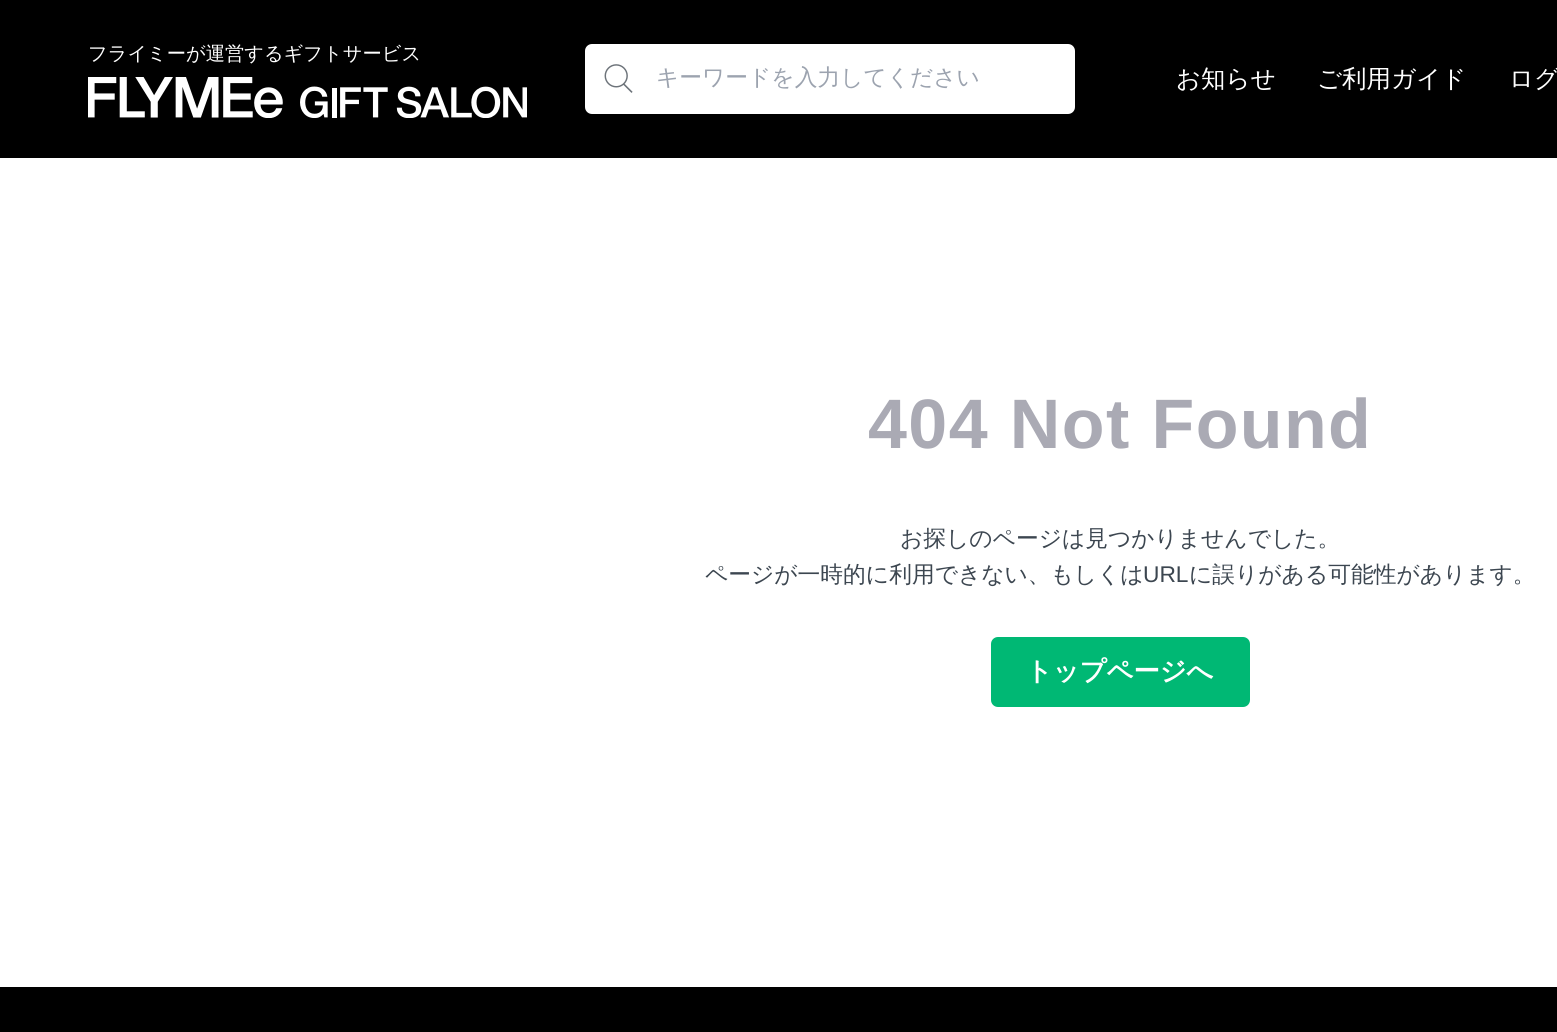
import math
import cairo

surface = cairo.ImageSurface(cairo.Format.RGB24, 1557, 1032)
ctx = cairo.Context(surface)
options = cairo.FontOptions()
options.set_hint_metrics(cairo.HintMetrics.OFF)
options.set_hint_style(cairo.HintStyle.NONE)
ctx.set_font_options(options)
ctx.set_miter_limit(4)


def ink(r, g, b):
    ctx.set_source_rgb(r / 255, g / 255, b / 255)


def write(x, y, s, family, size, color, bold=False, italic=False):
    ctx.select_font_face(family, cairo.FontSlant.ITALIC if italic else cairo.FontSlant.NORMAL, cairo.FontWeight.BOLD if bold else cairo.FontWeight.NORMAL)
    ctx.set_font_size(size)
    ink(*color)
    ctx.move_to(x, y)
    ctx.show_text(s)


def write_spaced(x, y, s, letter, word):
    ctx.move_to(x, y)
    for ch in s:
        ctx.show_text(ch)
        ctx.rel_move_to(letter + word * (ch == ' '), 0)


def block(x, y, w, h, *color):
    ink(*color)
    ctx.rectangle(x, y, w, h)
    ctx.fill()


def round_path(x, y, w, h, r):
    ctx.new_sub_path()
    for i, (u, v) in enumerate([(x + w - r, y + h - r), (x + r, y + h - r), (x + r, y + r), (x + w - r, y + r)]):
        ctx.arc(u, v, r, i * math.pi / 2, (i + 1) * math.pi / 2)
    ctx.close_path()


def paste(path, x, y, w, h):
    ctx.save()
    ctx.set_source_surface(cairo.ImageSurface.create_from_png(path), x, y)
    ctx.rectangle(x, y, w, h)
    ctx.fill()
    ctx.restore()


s1 = dict(family="WenQuanYi Zen Hei Medium", size=19.25, color=(255, 255, 255))
s2 = dict(family="WenQuanYi Zen Hei Medium", size=22.75, color=(156, 163, 175))
s3 = dict(family="WenQuanYi Zen Hei Medium", size=24.5, color=(255, 255, 255))
s4 = dict(family="WenQuanYi Zen Hei Medium", size=22.75, color=(60, 70, 80))
s5 = dict(family="Liberation Sans", size=22.75, color=(60, 70, 80))
s6 = dict(family="WenQuanYi Zen Hei", size=26.25, color=(255, 255, 255), bold=True)

ink(255, 255, 255)
ctx.paint()
block(0, 0, 1557, 158, 0, 0, 0)
write(88, 60, "フライミーが運営するギフトサービス", **s1)
paste("pic1.png", 88, 77, 439, 41)
round_path(585, 44, 490, 70, 7)
ctx.fill()
paste("pic2.png", 604, 64, 29, 29)
write(656, 85, "キーワードを入力してください", **s2)
write(1176, 87, "お知らせ", **s3)
write(1317, 87, "ご利用ガイド", **s3)
write(1509, 87, "ログ", **s3)
ctx.select_font_face("Liberation Sans", cairo.FontSlant.NORMAL, cairo.FontWeight.BOLD)
ctx.set_font_size(70)
ink(170, 170, 180)
write_spaced(868, 448, "404 Not Found", 1.4, 0)
write(900, 546, "お探しのページは見つかりませんでした。", **s4)
write(705, 582, "ページが一時的に利用できない、もしくは", **s4)
write(1143, 582, "URL", **s5)
write(1189, 582, "に誤りがある可能性があります。", **s4)
ink(0, 184, 116)
round_path(991, 637, 259, 70, 7)
ctx.fill()
write(1026, 680, "トップページへ", **s6)
block(0, 987, 1557, 45, 0, 0, 0)
surface.write_to_png("screenshot.png")
